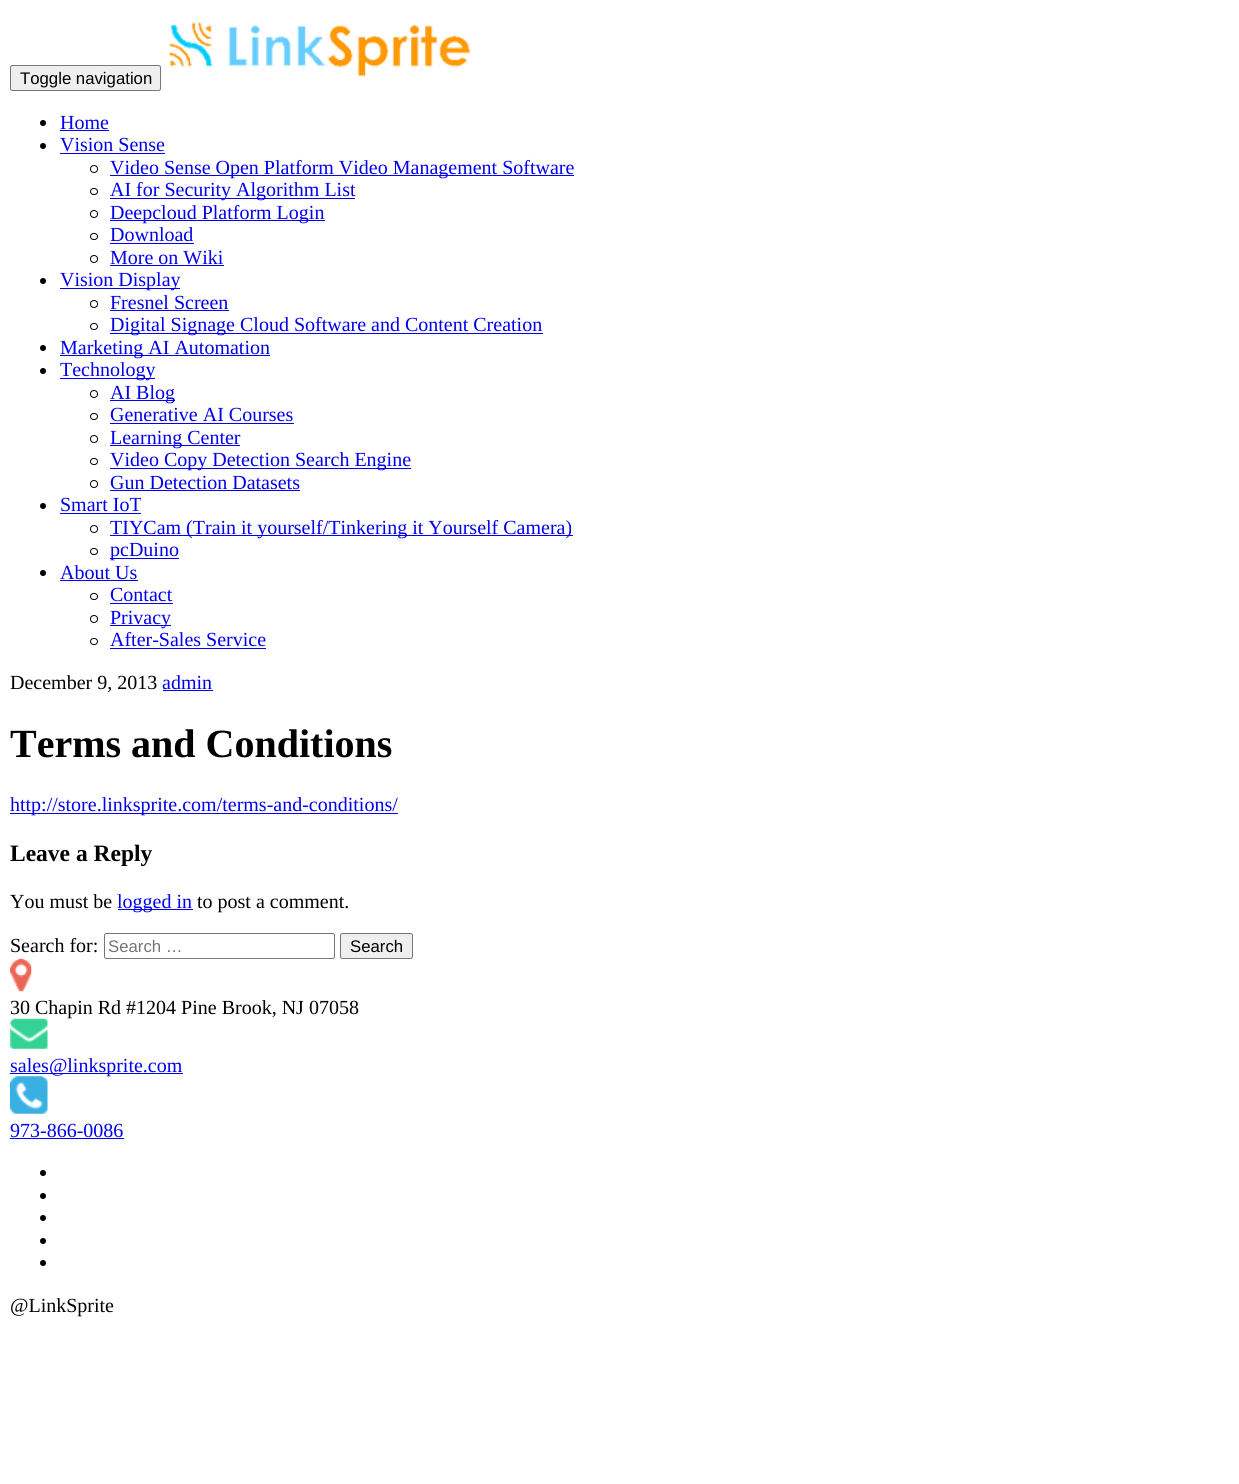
import math
import cairo

surface = cairo.ImageSurface(cairo.Format.RGB24, 1239, 1484)
ctx = cairo.Context(surface)
options = cairo.FontOptions()
options.set_hint_metrics(cairo.HintMetrics.OFF)
options.set_hint_style(cairo.HintStyle.NONE)
ctx.set_font_options(options)
ctx.set_miter_limit(4)


def ink(r, g, b):
    ctx.set_source_rgb(r / 255, g / 255, b / 255)


def write(x, y, s, family, size, color, bold=False, italic=False):
    ctx.select_font_face(family, cairo.FontSlant.ITALIC if italic else cairo.FontSlant.NORMAL, cairo.FontWeight.BOLD if bold else cairo.FontWeight.NORMAL)
    ctx.set_font_size(size)
    ink(*color)
    ctx.move_to(x, y)
    ctx.show_text(s)


def block(x, y, w, h, *color):
    ink(*color)
    ctx.rectangle(x, y, w, h)
    ctx.fill()


def round_path(x, y, w, h, r):
    ctx.new_sub_path()
    for i, (u, v) in enumerate([(x + w - r, y + h - r), (x + r, y + h - r), (x + r, y + r), (x + w - r, y + r)]):
        ctx.arc(u, v, r, i * math.pi / 2, (i + 1) * math.pi / 2)
    ctx.close_path()


def paste(path, x, y, w, h):
    ctx.save()
    ctx.set_source_surface(cairo.ImageSurface.create_from_png(path), x, y)
    ctx.rectangle(x, y, w, h)
    ctx.fill()
    ctx.restore()


s1 = dict(family="Liberation Sans", size=16.75, color=(0, 0, 0))
s2 = dict(family="Liberation Serif", size=20, color=(0, 0, 238))
s3 = dict(family="Liberation Serif", size=20, color=(0, 0, 0))
s4 = dict(family="Liberation Serif", size=40, color=(0, 0, 0), bold=True)
s5 = dict(family="Liberation Serif", size=23.5, color=(0, 0, 0), bold=True)
s6 = dict(family="Liberation Sans", size=16.75, color=(117, 117, 117))

ink(255, 255, 255)
ctx.paint()
paste("pic1.png", 168, 22, 303, 55)
ink(239, 239, 239)
round_path(10.5, 65.5, 150, 25, 2)
ctx.fill_preserve()
ink(118, 118, 118)
ctx.set_line_width(1)
ctx.stroke()
write(20, 84, "Toggle navigation", **s1)
ctx.new_path()
ctx.arc(43, 123, 3, 0, 2 * math.pi)
ctx.fill()
write(60, 129, "Home", **s2)
block(60, 130, 49, 1, 0, 0, 238)
ink(0, 0, 0)
ctx.new_path()
ctx.arc(43, 146, 3, 0, 2 * math.pi)
ctx.fill()
write(60, 151, "Vision Sense", **s2)
block(60, 153, 105, 1, 0, 0, 238)
ctx.new_path()
ctx.arc(94, 169, 3.5, 0, 2 * math.pi)
ink(0, 0, 0)
ctx.stroke()
block(110, 175, 464, 1, 0, 0, 238)
write(110, 174, "Video Sense Open Platform Video Management Software", **s2)
round_path(90.5, 188.5, 7, 6, 3)
ink(0, 0, 0)
ctx.stroke()
block(110, 198, 245, 1, 0, 0, 238)
write(110, 196, "AI for Security Algorithm List", **s2)
ctx.new_path()
ctx.arc(94, 214, 3.5, 0, 2 * math.pi)
ink(0, 0, 0)
ctx.stroke()
block(110, 220, 215, 1, 0, 0, 238)
write(110, 219, "Deepcloud Platform Login", **s2)
round_path(90.5, 233.5, 7, 6, 3)
ink(0, 0, 0)
ctx.stroke()
write(110, 241, "Download", **s2)
block(110, 243, 84, 1, 0, 0, 238)
ctx.new_path()
ctx.arc(94, 259, 3.5, 0, 2 * math.pi)
ink(0, 0, 0)
ctx.stroke()
write(110, 264, "More on Wiki", **s2)
block(110, 265, 114, 1, 0, 0, 238)
ink(0, 0, 0)
ctx.new_path()
ctx.arc(43, 281, 3, 0, 2 * math.pi)
ctx.fill()
block(60, 288, 120, 1, 0, 0, 238)
write(60, 286, "Vision Display", **s2)
ctx.new_path()
ctx.arc(94, 304, 3.5, 0, 2 * math.pi)
ink(0, 0, 0)
ctx.stroke()
write(110, 309, "Fresnel Screen", **s2)
block(110, 310, 119, 1, 0, 0, 238)
round_path(90.5, 323.5, 7, 6, 3)
ink(0, 0, 0)
ctx.stroke()
block(110, 333, 433, 1, 0, 0, 238)
write(110, 331, "Digital Signage Cloud Software and Content Creation", **s2)
ink(0, 0, 0)
ctx.new_path()
ctx.arc(43, 348, 3, 0, 2 * math.pi)
ctx.fill()
block(60, 355, 210, 1, 0, 0, 238)
write(60, 354, "Marketing AI Automation", **s2)
ink(0, 0, 0)
ctx.new_path()
ctx.arc(43, 371, 3, 0, 2 * math.pi)
ctx.fill()
block(60, 378, 95, 1, 0, 0, 238)
write(60, 376, "Technology", **s2)
ctx.new_path()
ctx.arc(94, 394, 3.5, 0, 2 * math.pi)
ink(0, 0, 0)
ctx.stroke()
block(110, 400, 65, 1, 0, 0, 238)
write(110, 399, "AI Blog", **s2)
round_path(90.5, 413.5, 7, 6, 3)
ink(0, 0, 0)
ctx.stroke()
write(110, 421, "Generative AI Courses", **s2)
block(110, 423, 184, 1, 0, 0, 238)
ctx.new_path()
ctx.arc(94, 439, 3.5, 0, 2 * math.pi)
ink(0, 0, 0)
ctx.stroke()
block(110, 445, 130, 1, 0, 0, 238)
write(110, 444, "Learning Center", **s2)
round_path(90.5, 458.5, 7, 6, 3)
ink(0, 0, 0)
ctx.stroke()
block(110, 468, 301, 1, 0, 0, 238)
write(110, 466, "Video Copy Detection Search Engine", **s2)
ctx.new_path()
ctx.arc(94, 484, 3.5, 0, 2 * math.pi)
ink(0, 0, 0)
ctx.stroke()
write(110, 489, "Gun Detection Datasets", **s2)
block(110, 490, 190, 1, 0, 0, 238)
ink(0, 0, 0)
ctx.new_path()
ctx.arc(43, 506, 3, 0, 2 * math.pi)
ctx.fill()
write(60, 511, "Smart IoT", **s2)
block(60, 513, 81, 1, 0, 0, 238)
ctx.new_path()
ctx.arc(94, 529, 3.5, 0, 2 * math.pi)
ink(0, 0, 0)
ctx.stroke()
block(110, 535, 463, 1, 0, 0, 238)
write(110, 534, "TIYCam (Train it yourself/Tinkering it Yourself Camera)", **s2)
round_path(90.5, 548.5, 7, 6, 3)
ink(0, 0, 0)
ctx.stroke()
block(110, 558, 69, 1, 0, 0, 238)
write(110, 556, "pcDuino", **s2)
ink(0, 0, 0)
ctx.new_path()
ctx.arc(43, 573, 3, 0, 2 * math.pi)
ctx.fill()
write(60, 579, "About Us", **s2)
block(60, 580, 78, 1, 0, 0, 238)
round_path(90.5, 593.5, 7, 6, 3)
ink(0, 0, 0)
ctx.stroke()
write(110, 601, "Contact", **s2)
block(110, 603, 63, 1, 0, 0, 238)
ctx.new_path()
ctx.arc(94, 619, 3.5, 0, 2 * math.pi)
ink(0, 0, 0)
ctx.stroke()
block(110, 625, 61, 1, 0, 0, 238)
write(110, 624, "Privacy", **s2)
round_path(90.5, 638.5, 7, 6, 3)
ink(0, 0, 0)
ctx.stroke()
write(110, 646, "After-Sales Service", **s2)
block(110, 648, 156, 1, 0, 0, 238)
write(10, 689, "December 9, 2013", **s3)
write(162, 689, "admin", **s2)
block(163, 690, 50, 1, 0, 0, 238)
write(10, 757, "Terms and Conditions", **s4)
block(10, 813, 388, 1, 0, 0, 238)
write(10, 811, "http://store.linksprite.com/terms-and-conditions/", **s2)
write(10, 861, "Leave a Reply", **s5)
write(10, 908, "You must be", **s3)
block(118, 909, 75, 1, 0, 0, 238)
write(117, 908, "logged in", **s2)
write(197, 908, "to post a comment.", **s3)
write(10, 952, "Search for:", **s3)
round_path(104.5, 933.5, 230, 25, 2)
ink(118, 118, 118)
ctx.stroke()
write(108, 952, "Search …", **s6)
ink(239, 239, 239)
round_path(340.5, 933.5, 72, 25, 2)
ctx.fill_preserve()
ink(118, 118, 118)
ctx.stroke()
write(350, 952, "Search", **s1)
paste("pic2.png", 10, 958, 22, 34)
write(10, 1014, "30 Chapin Rd #1204 Pine Brook, NJ 07058", **s3)
paste("pic3.png", 10, 1018, 38, 31)
block(10, 1073, 173, 1, 0, 0, 238)
write(10, 1072, "sales@linksprite.com", **s2)
paste("pic4.png", 10, 1076, 38, 38)
write(10, 1137, "973-866-0086", **s2)
block(10, 1138, 114, 1, 0, 0, 238)
ink(0, 0, 0)
ctx.new_path()
ctx.arc(43, 1173, 3, 0, 2 * math.pi)
ctx.fill()
ctx.arc(43, 1196, 3, 0, 2 * math.pi)
ctx.fill()
ctx.arc(43, 1218, 3, 0, 2 * math.pi)
ctx.fill()
ctx.arc(43, 1241, 3, 0, 2 * math.pi)
ctx.fill()
ctx.arc(43, 1263, 3, 0, 2 * math.pi)
ctx.fill()
write(10, 1312, "@LinkSprite", **s3)
surface.write_to_png("screenshot.png")
